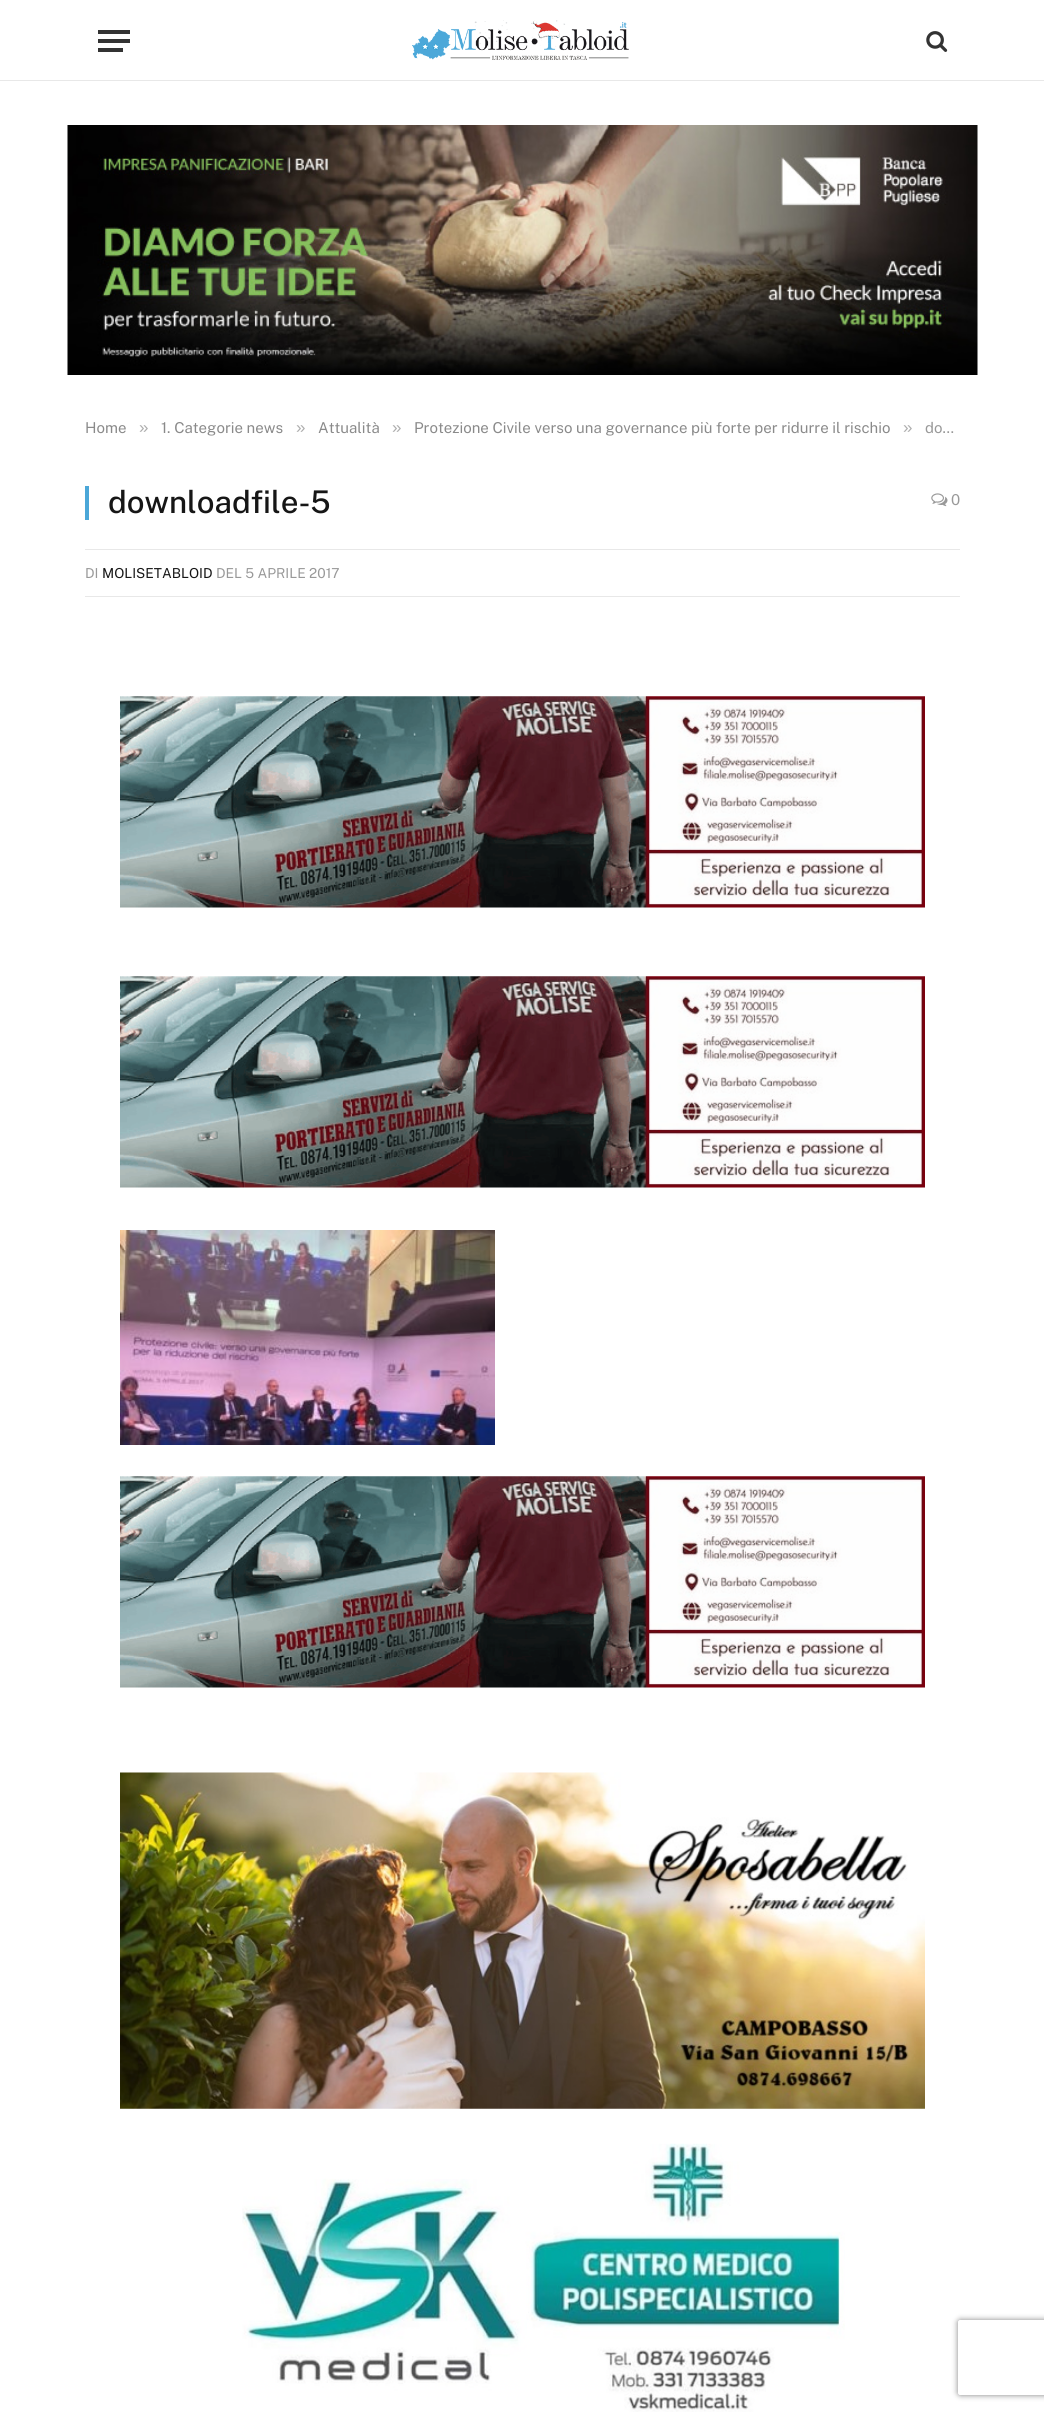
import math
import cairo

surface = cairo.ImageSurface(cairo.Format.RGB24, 1044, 2412)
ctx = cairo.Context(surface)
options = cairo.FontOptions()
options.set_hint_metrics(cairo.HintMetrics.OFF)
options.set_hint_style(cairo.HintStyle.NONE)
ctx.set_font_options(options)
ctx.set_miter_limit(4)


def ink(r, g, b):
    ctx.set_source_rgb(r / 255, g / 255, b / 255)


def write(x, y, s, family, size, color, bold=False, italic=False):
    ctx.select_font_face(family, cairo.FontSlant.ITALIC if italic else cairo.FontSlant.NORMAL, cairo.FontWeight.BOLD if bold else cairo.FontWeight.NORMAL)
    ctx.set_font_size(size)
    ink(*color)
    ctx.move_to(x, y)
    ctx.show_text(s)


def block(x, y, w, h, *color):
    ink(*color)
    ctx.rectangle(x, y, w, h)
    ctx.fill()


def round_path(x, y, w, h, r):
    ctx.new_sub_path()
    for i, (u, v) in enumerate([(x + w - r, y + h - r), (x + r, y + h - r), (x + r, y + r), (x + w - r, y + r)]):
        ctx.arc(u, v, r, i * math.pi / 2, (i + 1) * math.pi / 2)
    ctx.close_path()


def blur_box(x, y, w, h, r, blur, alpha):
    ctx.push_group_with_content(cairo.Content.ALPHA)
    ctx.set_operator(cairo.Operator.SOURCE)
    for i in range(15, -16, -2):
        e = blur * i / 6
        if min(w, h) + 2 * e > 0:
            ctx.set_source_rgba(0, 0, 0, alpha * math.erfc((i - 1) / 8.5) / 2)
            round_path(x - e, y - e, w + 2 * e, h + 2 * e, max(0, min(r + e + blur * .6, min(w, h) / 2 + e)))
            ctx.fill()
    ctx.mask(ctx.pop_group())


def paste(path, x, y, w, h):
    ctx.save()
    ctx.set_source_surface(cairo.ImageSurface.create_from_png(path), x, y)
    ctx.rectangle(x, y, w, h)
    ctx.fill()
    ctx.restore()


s1 = dict(family="Public Sans", size=15, color=(138, 138, 138))
s2 = dict(family="Liberation Sans", size=17, color=(173, 173, 173))
s3 = dict(family="Public Sans", size=15, color=(153, 153, 153))
s4 = dict(family="Public Sans Medium", size=31.25, color=(22, 22, 22))
s5 = dict(family="Public Sans", size=13.75, color=(153, 153, 153))
s6 = dict(family="Public Sans", size=13.75, color=(22, 22, 22))

ink(255, 255, 255)
ctx.paint()
block(0, 80, 1044, 1, 232, 232, 232)
block(98, 48, 25, 4, 51, 51, 51)
block(98, 30, 32, 4, 51, 51, 51)
block(98, 39, 32, 4, 51, 51, 51)
paste("pic1.png", 412, 20, 217, 40)
paste("pic2.png", 926, 31, 22, 21)
paste("pic3.png", 67, 125, 911, 250)
write(85, 433, "Home", **s1)
write(139, 433, "»", **s2)
write(161, 433, "1. Categorie news", **s1)
write(296, 433, "»", **s2)
write(318, 433, "Attualità", **s1)
write(392, 433, "»", **s2)
write(414, 433, "Protezione Civile verso una governance più forte per ridurre il rischio", **s1)
write(903, 433, "»", **s2)
write(925, 433, "do…", **s3)
block(85, 486, 4, 34, 75, 167, 216)
write(108, 513, "downloadfile-5", **s4)
paste("pic4.png", 931, 493, 17, 14)
write(951, 505, "0", **s3)
block(85, 549, 875, 1, 232, 232, 232)
block(85, 596, 875, 1, 232, 232, 232)
write(85, 578, "DI", **s5)
write(102, 578, "MOLISETABLOID", **s6)
write(216, 578, "DEL 5 APRILE 2017", **s5)
paste("pic5.png", 120, 696, 805, 212)
paste("pic5.png", 120, 976, 805, 212)
paste("pic6.png", 120, 1230, 375, 215)
paste("pic5.png", 120, 1476, 805, 212)
paste("pic7.png", 120, 1772, 805, 337)
paste("pic8.png", 242, 2143, 603, 269)
ctx.save()
ctx.set_fill_rule(cairo.FillRule.EVEN_ODD)
ctx.new_path()
ctx.move_to(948, 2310)
ctx.line_to(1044, 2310)
ctx.line_to(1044, 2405)
ctx.line_to(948, 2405)
ctx.close_path()
ctx.move_to(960.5, 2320)
ctx.line_to(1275.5, 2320)
ctx.curve_to(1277, 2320, 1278, 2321, 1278, 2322.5)
ctx.line_to(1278, 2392.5)
ctx.curve_to(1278, 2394, 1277, 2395, 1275.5, 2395)
ctx.line_to(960.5, 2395)
ctx.curve_to(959, 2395, 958, 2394, 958, 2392.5)
ctx.line_to(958, 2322.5)
ctx.curve_to(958, 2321, 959, 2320, 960.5, 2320)
ctx.close_path()
ctx.clip()
ink(128, 128, 128)
blur_box(958, 2320, 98, 75, 2.5, 3, 1)
ctx.restore()
surface.write_to_png("screenshot.png")
